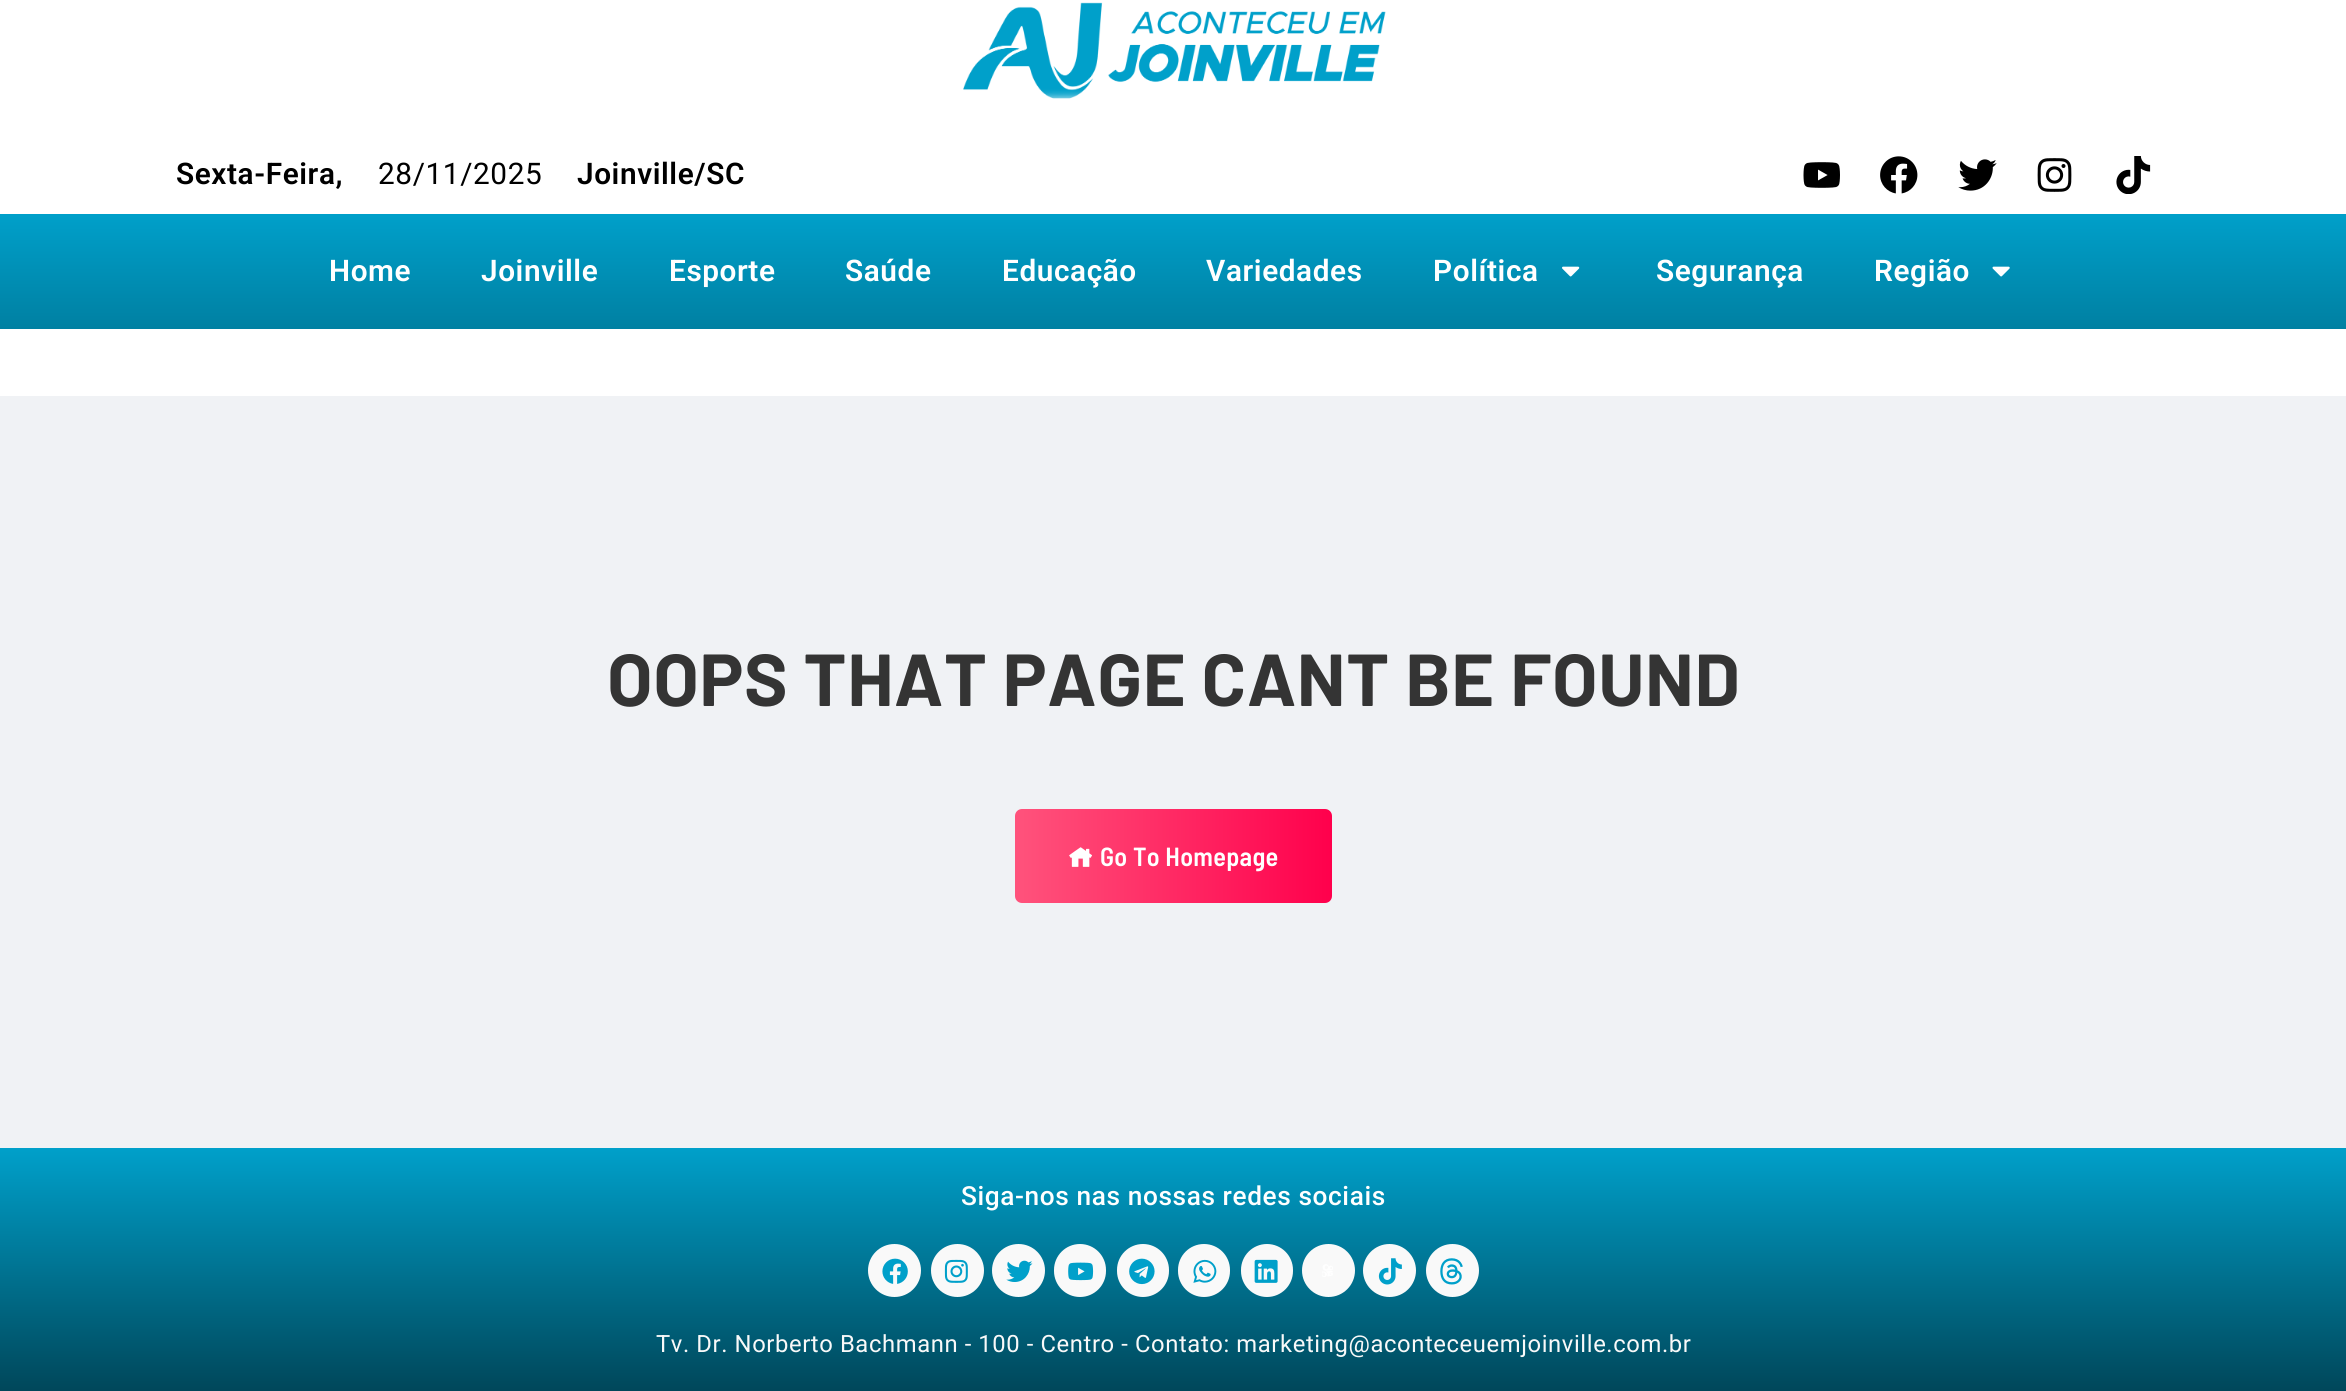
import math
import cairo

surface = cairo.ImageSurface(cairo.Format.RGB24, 2346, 1391)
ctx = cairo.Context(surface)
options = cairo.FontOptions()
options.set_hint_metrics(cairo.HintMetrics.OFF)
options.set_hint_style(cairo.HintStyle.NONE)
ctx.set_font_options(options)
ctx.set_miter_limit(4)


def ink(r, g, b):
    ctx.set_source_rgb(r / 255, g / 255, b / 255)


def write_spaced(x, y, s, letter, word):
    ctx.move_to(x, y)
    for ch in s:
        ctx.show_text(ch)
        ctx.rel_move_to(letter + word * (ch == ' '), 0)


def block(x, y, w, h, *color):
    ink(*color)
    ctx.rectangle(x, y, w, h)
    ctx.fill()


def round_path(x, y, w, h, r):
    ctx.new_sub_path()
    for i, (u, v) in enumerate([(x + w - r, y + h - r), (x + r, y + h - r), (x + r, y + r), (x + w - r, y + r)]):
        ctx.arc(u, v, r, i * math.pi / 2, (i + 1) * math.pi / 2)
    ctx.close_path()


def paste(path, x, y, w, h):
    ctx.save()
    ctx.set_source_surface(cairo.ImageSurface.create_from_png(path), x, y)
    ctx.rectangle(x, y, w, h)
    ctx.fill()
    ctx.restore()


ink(255, 255, 255)
ctx.paint()
paste("pic1.png", 963, 2, 423, 97)
ctx.select_font_face("Roboto SemiBold")
ctx.set_font_size(29.75)
ink(0, 0, 0)
write_spaced(176, 184, "Sexta-Feira,", 0.6, 0)
ctx.select_font_face("Roboto")
write_spaced(378, 184, "28/11/2025", 0.6, 0)
ctx.select_font_face("Roboto SemiBold")
write_spaced(577, 184, "Joinville/SC", 0.6, 0)
paste("pic2.png", 1803, 162, 37, 26)
paste("pic3.png", 1880, 156, 38, 38)
paste("pic4.png", 1958, 159, 39, 32)
paste("pic5.png", 2037, 158, 35, 34)
paste("pic6.png", 2116, 156, 35, 38)
gradient = cairo.LinearGradient(1173, 213, 1173, 329)
gradient.add_color_stop_rgba(0, 0, 0.627, 0.792, 1)
gradient.add_color_stop_rgba(1, 0, 0.502, 0.635, 1)
ctx.set_source(gradient)
ctx.rectangle(0, 214, 2346, 115)
ctx.fill()
ink(255, 255, 255)
write_spaced(329, 281, "Home", 0.6, 0)
write_spaced(481, 281, "Joinville", 0.6, 0)
write_spaced(669, 281, "Esporte", 0.6, 0)
write_spaced(845, 281, "Saúde", 0.6, 0)
write_spaced(1002, 281, "Educação", 0.6, 0)
write_spaced(1206, 281, "Variedades", 0.6, 0)
write_spaced(1433, 281, "Política", 0.6, 0)
paste("pic7.png", 1562, 266, 18, 11)
write_spaced(1656, 281, "Segurança", 0.6, 0)
write_spaced(1874, 281, "Região", 0.6, 0)
paste("pic8.png", 1992, 266, 18, 11)
block(0, 396, 2346, 752, 240, 242, 245)
ctx.select_font_face("Barlow", cairo.FontSlant.NORMAL, cairo.FontWeight.BOLD)
ctx.set_font_size(73.5)
ink(52, 52, 52)
write_spaced(607, 706, "OOPS THAT PAGE CANT BE FOUND", 0.6, 0)
gradient = cairo.LinearGradient(1015, 856, 1332, 856)
gradient.add_color_stop_rgba(0, 1, 0.325, 0.486, 1)
gradient.add_color_stop_rgba(1, 1, 0, 0.298, 1)
ctx.set_source(gradient)
round_path(1015, 809, 317, 94, 7)
ctx.fill()
paste("pic9.png", 1069, 847, 23, 20)
ctx.select_font_face("Barlow Semi Condensed SemiBold")
ctx.set_font_size(26.25)
ink(255, 255, 255)
write_spaced(1100, 866, "Go To Homepage", 0.25, 0)
gradient = cairo.LinearGradient(1173, 1148, 1173, 1391)
gradient.add_color_stop_rgba(0, 0, 0.627, 0.792, 1)
gradient.add_color_stop_rgba(1, 0, 0.278, 0.353, 1)
ctx.set_source(gradient)
ctx.rectangle(0, 1148, 2346, 243)
ctx.fill()
ctx.select_font_face("Roboto Medium")
ink(255, 255, 255)
write_spaced(961, 1205, "Siga-nos nas nossas redes sociais", 0.6, 0)
ink(249, 249, 249)
ctx.new_path()
ctx.arc(894.5, 1270.5, 26.5, 0, 2 * math.pi)
ctx.fill()
paste("pic10.png", 882, 1258, 26, 26)
ctx.arc(957.5, 1270.5, 26.5, 0, 2 * math.pi)
ctx.fill()
paste("pic11.png", 944, 1259, 24, 24)
ctx.arc(1018.5, 1270.5, 26.5, 0, 2 * math.pi)
ctx.fill()
paste("pic12.png", 1006, 1260, 27, 22)
round_path(1054, 1244, 52, 53, 26)
ctx.fill()
paste("pic13.png", 1068, 1262, 26, 19)
round_path(1117, 1244, 52, 53, 26)
ctx.fill()
paste("pic14.png", 1129, 1258, 26, 27)
round_path(1178, 1244, 52, 53, 26)
ctx.fill()
paste("pic15.png", 1193, 1259, 24, 24)
round_path(1241, 1244, 52, 53, 26)
ctx.fill()
paste("pic16.png", 1254, 1259, 24, 24)
ctx.arc(1328.5, 1270.5, 26.5, 0, 2 * math.pi)
ctx.fill()
paste("pic17.png", 1322, 1264, 11, 13)
ctx.arc(1389.5, 1270.5, 26.5, 0, 2 * math.pi)
ctx.fill()
paste("pic18.png", 1378, 1258, 24, 27)
ctx.arc(1452.5, 1270.5, 26.5, 0, 2 * math.pi)
ctx.fill()
paste("pic19.png", 1440, 1258, 23, 27)
ctx.select_font_face("Roboto")
ctx.set_font_size(23.8)
write_spaced(656, 1352, "Tv. Dr. Norberto Bachmann - 100 - Centro - Contato: marketing@aconteceuemjoinville.com.br", 0.6, 0)
surface.write_to_png("screenshot.png")
